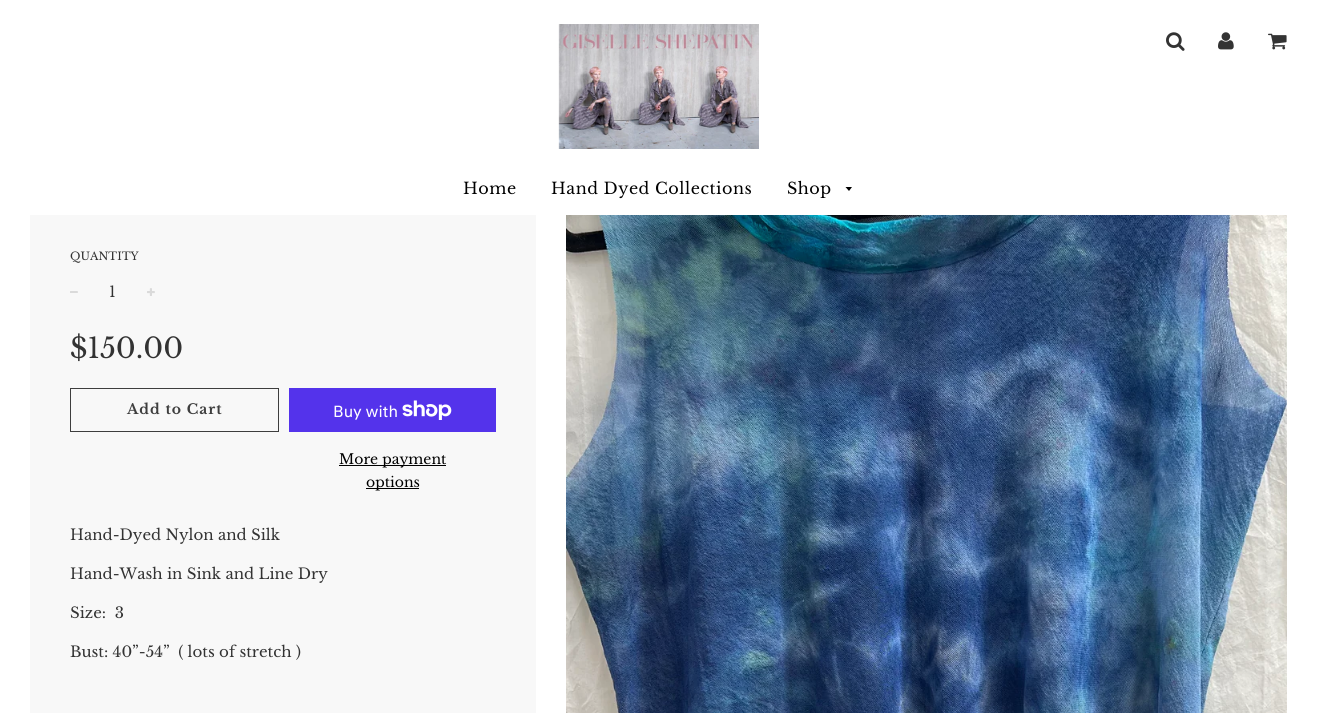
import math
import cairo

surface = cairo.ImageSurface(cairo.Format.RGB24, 1317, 713)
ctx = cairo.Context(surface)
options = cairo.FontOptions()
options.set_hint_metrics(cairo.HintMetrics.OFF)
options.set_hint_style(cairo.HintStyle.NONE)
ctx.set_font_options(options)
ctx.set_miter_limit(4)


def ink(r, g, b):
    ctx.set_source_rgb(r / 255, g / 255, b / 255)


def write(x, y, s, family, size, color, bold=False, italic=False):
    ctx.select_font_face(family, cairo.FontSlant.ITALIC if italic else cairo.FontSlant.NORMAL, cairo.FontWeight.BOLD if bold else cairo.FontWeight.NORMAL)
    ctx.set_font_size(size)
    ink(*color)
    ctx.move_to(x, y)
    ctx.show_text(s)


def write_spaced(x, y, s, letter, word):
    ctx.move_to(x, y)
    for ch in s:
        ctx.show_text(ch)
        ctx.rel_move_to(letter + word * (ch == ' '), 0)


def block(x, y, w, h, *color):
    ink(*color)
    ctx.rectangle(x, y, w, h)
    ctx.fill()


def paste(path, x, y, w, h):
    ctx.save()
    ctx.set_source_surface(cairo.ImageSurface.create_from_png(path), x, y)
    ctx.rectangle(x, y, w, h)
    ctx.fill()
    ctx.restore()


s1 = dict(family="Libre Baskerville", size=11, color=(51, 51, 51))
s2 = dict(family="Libre Baskerville", size=15, color=(51, 51, 51))
s3 = dict(family="Libre Baskerville", size=28, color=(51, 51, 51))
s4 = dict(family="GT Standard", size=16, color=(255, 255, 255))
s5 = dict(family="Libre Baskerville", size=14, color=(0, 0, 0))

ink(255, 255, 255)
ctx.paint()
paste("pic1.png", 558, 24, 201, 125)
paste("pic2.png", 1166, 32, 19, 19)
paste("pic3.png", 1218, 32, 16, 18)
paste("pic4.png", 1268, 33, 19, 17)
ctx.select_font_face("Libre Baskerville")
ctx.set_font_size(16)
ink(0, 0, 0)
write_spaced(463, 194, "Home", 0.5, 0)
write_spaced(551, 194, "Hand Dyed Collections", 0.5, 0)
write_spaced(787, 194, "Shop", 0.5, 0)
ctx.new_path()
ctx.move_to(845.5, 187)
ctx.line_to(849, 191)
ctx.line_to(852, 187)
ctx.close_path()
ctx.fill()
block(30, 215, 506, 498, 248, 248, 248)
write(70, 260, "QUANTITY", **s1)
paste("pic5.png", 70, 291, 8, 2)
write(109, 297, "1", **s2)
paste("pic6.png", 147, 288, 8, 8)
write(70, 358, "$150.00", **s3)
ctx.rectangle(70.5, 388.5, 208, 43)
ink(62, 62, 62)
ctx.set_line_width(1)
ctx.stroke()
ctx.select_font_face("Libre Baskerville", cairo.FontSlant.NORMAL, cairo.FontWeight.BOLD)
ctx.set_font_size(14)
write_spaced(127, 414, "Add to Cart", 1, 0)
block(289, 388, 207, 44, 84, 51, 235)
write(333, 417, "Buy with", **s4)
paste("pic7.png", 402, 400, 50, 20)
block(339, 465, 107, 1, 0, 0, 0)
write(339, 464, "More payment", **s5)
block(366, 488, 53, 1, 0, 0, 0)
write(366, 487, "options", **s5)
write(70, 540, "Hand-Dyed Nylon and Silk", **s2)
write(70, 579, "Hand-Wash in Sink and Line Dry", **s2)
write(70, 618, "Size:  3", **s2)
write(70, 657, "Bust: 40”-54”  ( lots of stretch )", **s2)
paste("pic8.png", 566, 215, 721, 498)
surface.write_to_png("screenshot.png")
